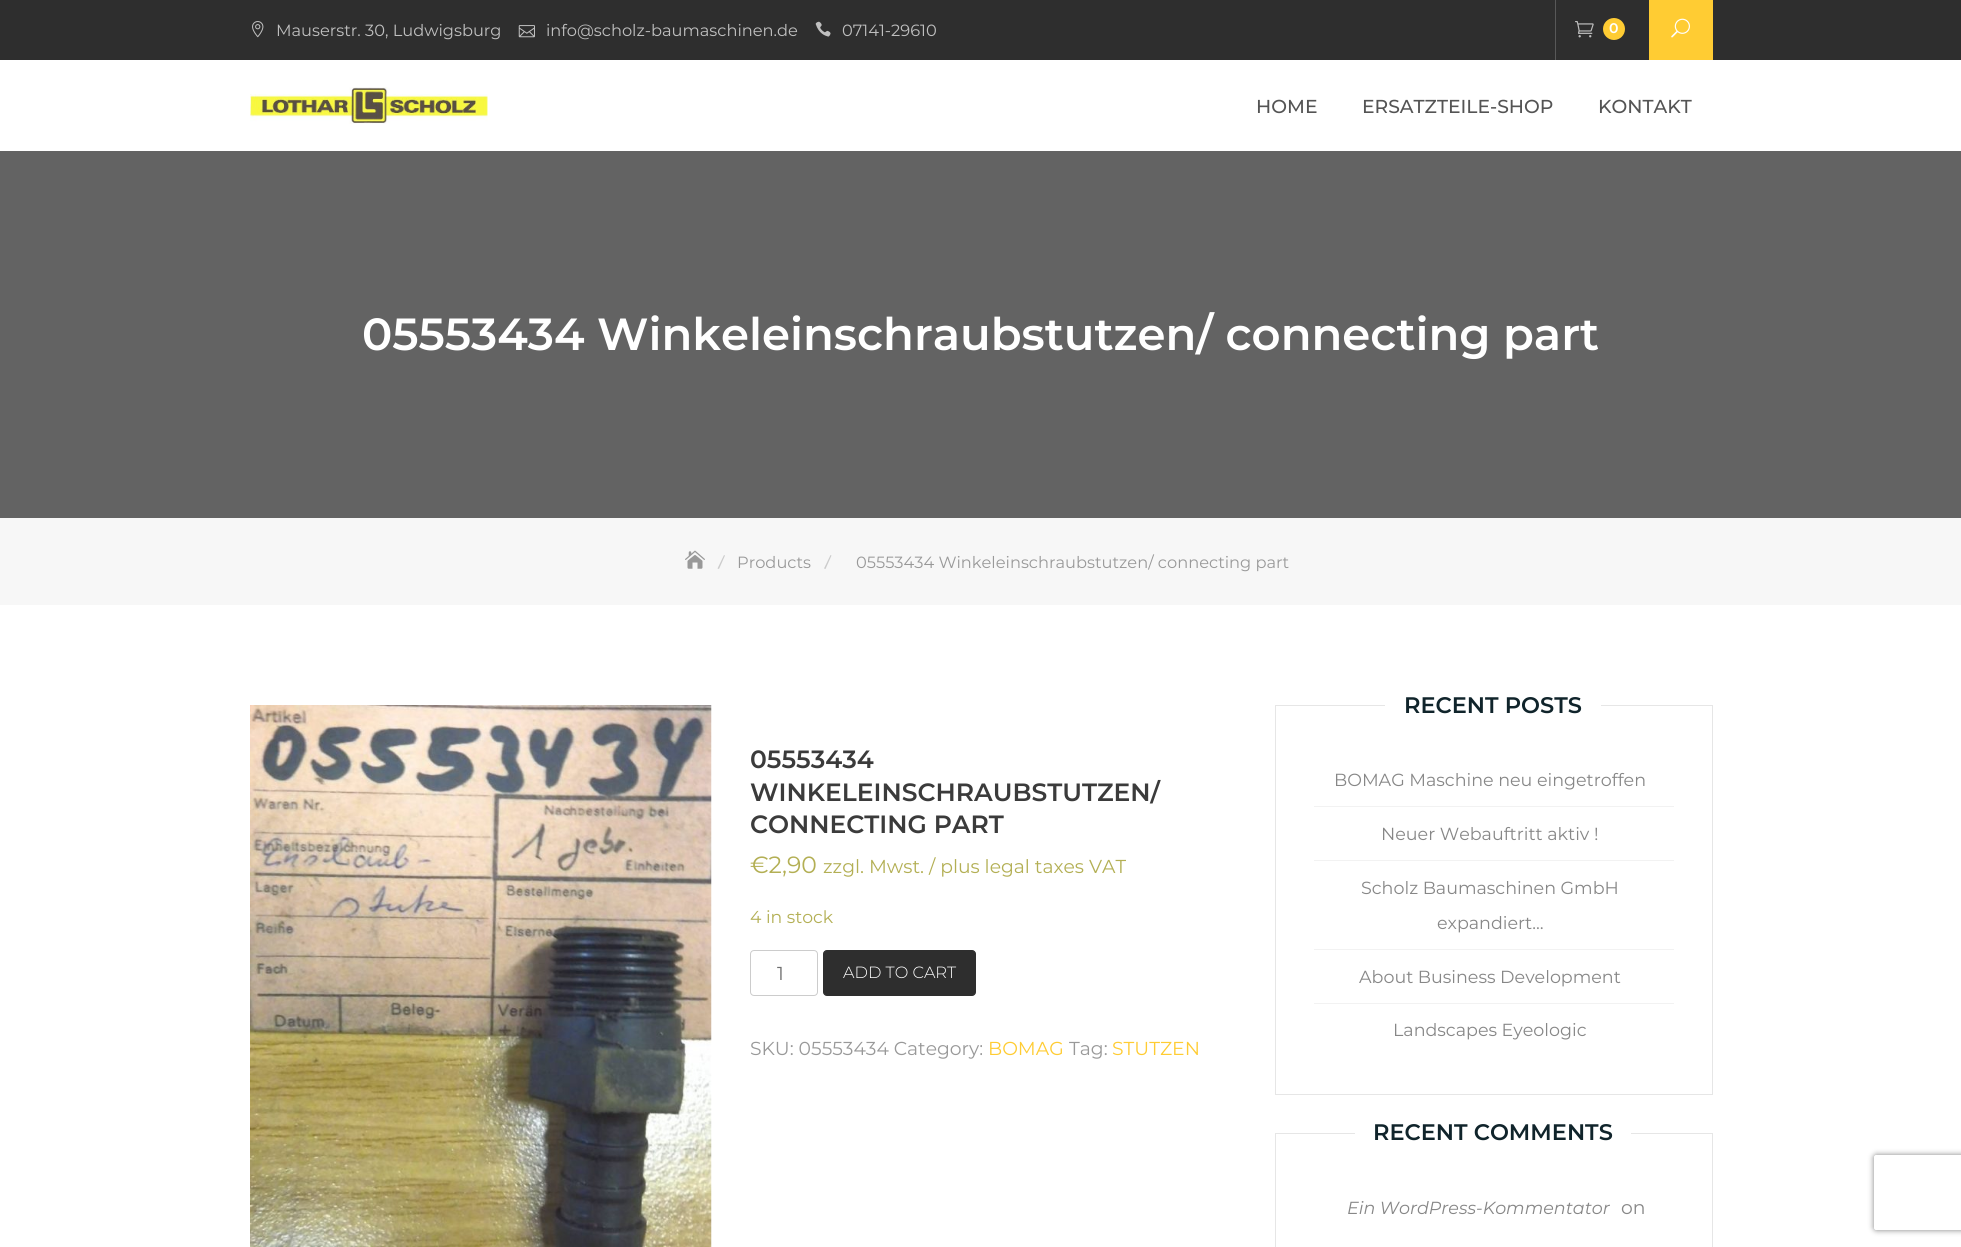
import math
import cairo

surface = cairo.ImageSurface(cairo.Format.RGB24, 1961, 1247)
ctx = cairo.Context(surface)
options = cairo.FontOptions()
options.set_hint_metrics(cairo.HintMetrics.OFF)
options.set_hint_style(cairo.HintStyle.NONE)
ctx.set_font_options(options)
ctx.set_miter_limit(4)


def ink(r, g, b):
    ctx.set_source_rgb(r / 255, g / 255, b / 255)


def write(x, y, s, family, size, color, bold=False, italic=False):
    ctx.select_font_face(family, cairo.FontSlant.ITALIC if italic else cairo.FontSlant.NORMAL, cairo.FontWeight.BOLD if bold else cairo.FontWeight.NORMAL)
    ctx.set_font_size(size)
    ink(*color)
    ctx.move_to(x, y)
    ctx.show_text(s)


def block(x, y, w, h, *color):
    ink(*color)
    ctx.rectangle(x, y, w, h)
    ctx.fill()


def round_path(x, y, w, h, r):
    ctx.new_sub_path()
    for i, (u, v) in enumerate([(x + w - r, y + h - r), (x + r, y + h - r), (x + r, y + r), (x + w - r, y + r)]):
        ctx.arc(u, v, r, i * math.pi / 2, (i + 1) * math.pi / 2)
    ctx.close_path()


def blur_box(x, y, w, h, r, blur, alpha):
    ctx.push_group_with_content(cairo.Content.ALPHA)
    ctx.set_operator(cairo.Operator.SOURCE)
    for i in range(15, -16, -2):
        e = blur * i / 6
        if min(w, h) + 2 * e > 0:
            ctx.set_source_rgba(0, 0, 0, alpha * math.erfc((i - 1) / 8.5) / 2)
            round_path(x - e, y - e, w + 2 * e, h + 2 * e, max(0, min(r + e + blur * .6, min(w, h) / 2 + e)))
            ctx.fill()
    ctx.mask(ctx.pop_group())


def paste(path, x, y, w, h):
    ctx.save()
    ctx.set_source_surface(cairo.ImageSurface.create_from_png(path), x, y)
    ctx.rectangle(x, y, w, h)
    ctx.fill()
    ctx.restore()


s1 = dict(family="Montserrat", size=16.25, color=(191, 191, 191))
s2 = dict(family="Montserrat SemiBold", size=14, color=(255, 255, 255))
s3 = dict(family="Montserrat Medium", size=18.75, color=(84, 84, 84))
s4 = dict(family="Montserrat SemiBold", size=45, color=(255, 255, 255))
s5 = dict(family="Montserrat", size=16.25, color=(153, 153, 153))
s6 = dict(family="Montserrat SemiBold", size=25, color=(59, 59, 59))
s7 = dict(family="Montserrat", size=23.5, color=(179, 175, 84))
s8 = dict(family="Montserrat", size=18.75, color=(179, 175, 84))
s9 = dict(family="Montserrat", size=17.25, color=(179, 175, 84))
s10 = dict(family="Montserrat", size=18.75, color=(110, 110, 110))
s11 = dict(family="Montserrat Light", size=16.25, color=(255, 255, 255))
s12 = dict(family="Montserrat", size=18.75, color=(153, 153, 153))
s13 = dict(family="Montserrat", size=18.75, color=(255, 204, 51))
s14 = dict(family="Montserrat SemiBold", size=22.5, color=(16, 36, 43))
s15 = dict(family="Montserrat", size=17.5, color=(135, 135, 135))
s16 = dict(family="Montserrat", size=17.5, color=(135, 135, 135), italic=True)
s17 = dict(family="Montserrat", size=18.75, color=(135, 135, 135))

ink(255, 255, 255)
ctx.paint()
block(0, 0, 1961, 60, 46, 46, 46)
paste("pic1.png", 252, 21, 12, 17)
write(276, 36, "Mauserstr. 30, Ludwigsburg", **s1)
paste("pic2.png", 518, 25, 17, 13)
write(546, 36, "info@scholz-baumaschinen.de", **s1)
paste("pic3.png", 815, 21, 16, 16)
write(842, 36, "07141-29610", **s1)
block(1555, 0, 1, 60, 88, 88, 88)
paste("pic4.png", 1575, 21, 19, 17)
ink(255, 204, 51)
ctx.arc(1614, 29, 11, 0, 2 * math.pi)
ctx.fill()
write(1609, 33, "0", **s2)
block(1649, 0, 64, 60, 255, 204, 51)
paste("pic5.png", 1671, 18, 19, 20)
paste("pic6.png", 250, 87, 238, 37)
write(1256, 113, "HOME", **s3)
write(1362, 113, "ERSATZTEILE-SHOP", **s3)
write(1598, 113, "KONTAKT", **s3)
block(0, 151, 1961, 367, 99, 99, 99)
write(362, 350, "05553434 Winkeleinschraubstutzen/ connecting part", **s4)
block(0, 518, 1961, 87, 247, 247, 247)
paste("pic7.png", 685, 550, 20, 19)
ink(204, 204, 204)
ctx.new_path()
ctx.move_to(724, 555)
ctx.line_to(725, 555.5)
ctx.line_to(719, 569)
ctx.line_to(717.5, 568.5)
ctx.close_path()
ctx.fill()
write(737, 568, "Products", **s5)
ink(204, 204, 204)
ctx.new_path()
ctx.move_to(830.5, 555)
ctx.line_to(831.5, 555.5)
ctx.line_to(825.5, 569)
ctx.line_to(824, 568.5)
ctx.close_path()
ctx.fill()
write(856, 568, "05553434 Winkeleinschraubstutzen/ connecting part", **s5)
paste("pic8.png", 250, 705, 462, 542)
write(750, 768, "05553434", **s6)
write(750, 801, "WINKELEINSCHRAUBSTUTZEN/", **s6)
write(750, 833, "CONNECTING PART", **s6)
write(750, 873, "€2,90", **s7)
write(823, 873, "zzgl. Mwst. / plus legal taxes VAT", **s8)
write(750, 923, "4 in stock", **s9)
round_path(750.5, 950.5, 67, 45, 3.5)
ink(204, 204, 204)
ctx.set_line_width(1)
ctx.stroke()
write(777, 980, "1", **s10)
ink(46, 46, 46)
round_path(823.5, 950.5, 152, 45, 3.5)
ctx.fill_preserve()
ctx.stroke()
write(843, 978, "ADD TO CART", **s11)
write(750, 1055, "SKU: 05553434 Category:", **s12)
write(988, 1055, "BOMAG", **s13)
write(1069, 1055, "Tag:", **s12)
write(1112, 1055, "STUTZEN", **s13)
ctx.rectangle(1275.5, 705.5, 437, 389)
ink(230, 230, 230)
ctx.stroke()
block(1385, 705, 216, 1, 255, 255, 255)
write(1404, 713, "RECENT POSTS", **s14)
write(1334, 786, "BOMAG Maschine neu eingetroffen", **s15)
block(1314, 806, 360, 1, 242, 242, 242)
write(1381, 840, "Neuer Webauftritt aktiv !", **s15)
block(1314, 860, 360, 1, 242, 242, 242)
write(1361, 894, "Scholz Baumaschinen GmbH", **s15)
write(1437, 929, "expandiert…", **s15)
block(1314, 949, 360, 1, 242, 242, 242)
write(1359, 983, "About Business Development", **s15)
block(1314, 1003, 360, 1, 242, 242, 242)
write(1393, 1036, "Landscapes Eyeologic", **s15)
ctx.rectangle(1275.5, 1133.5, 437, 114)
ink(230, 230, 230)
ctx.stroke()
block(1355, 1133, 276, 1, 255, 255, 255)
write(1373, 1140, "RECENT COMMENTS", **s14)
write(1347, 1214, "Ein WordPress-Kommentator", **s16)
write(1621, 1214, "on", **s17)
ctx.save()
ctx.set_fill_rule(cairo.FillRule.EVEN_ODD)
ctx.new_path()
ctx.move_to(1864, 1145)
ctx.line_to(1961, 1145)
ctx.line_to(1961, 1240)
ctx.line_to(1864, 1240)
ctx.close_path()
ctx.move_to(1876.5, 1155)
ctx.line_to(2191.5, 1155)
ctx.curve_to(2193, 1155, 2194, 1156, 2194, 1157.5)
ctx.line_to(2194, 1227.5)
ctx.curve_to(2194, 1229, 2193, 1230, 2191.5, 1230)
ctx.line_to(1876.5, 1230)
ctx.curve_to(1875, 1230, 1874, 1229, 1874, 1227.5)
ctx.line_to(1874, 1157.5)
ctx.curve_to(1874, 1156, 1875, 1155, 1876.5, 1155)
ctx.close_path()
ctx.clip()
ink(128, 128, 128)
blur_box(1874, 1155, 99, 75, 2.5, 3, 1)
ctx.restore()
surface.write_to_png("screenshot.png")
